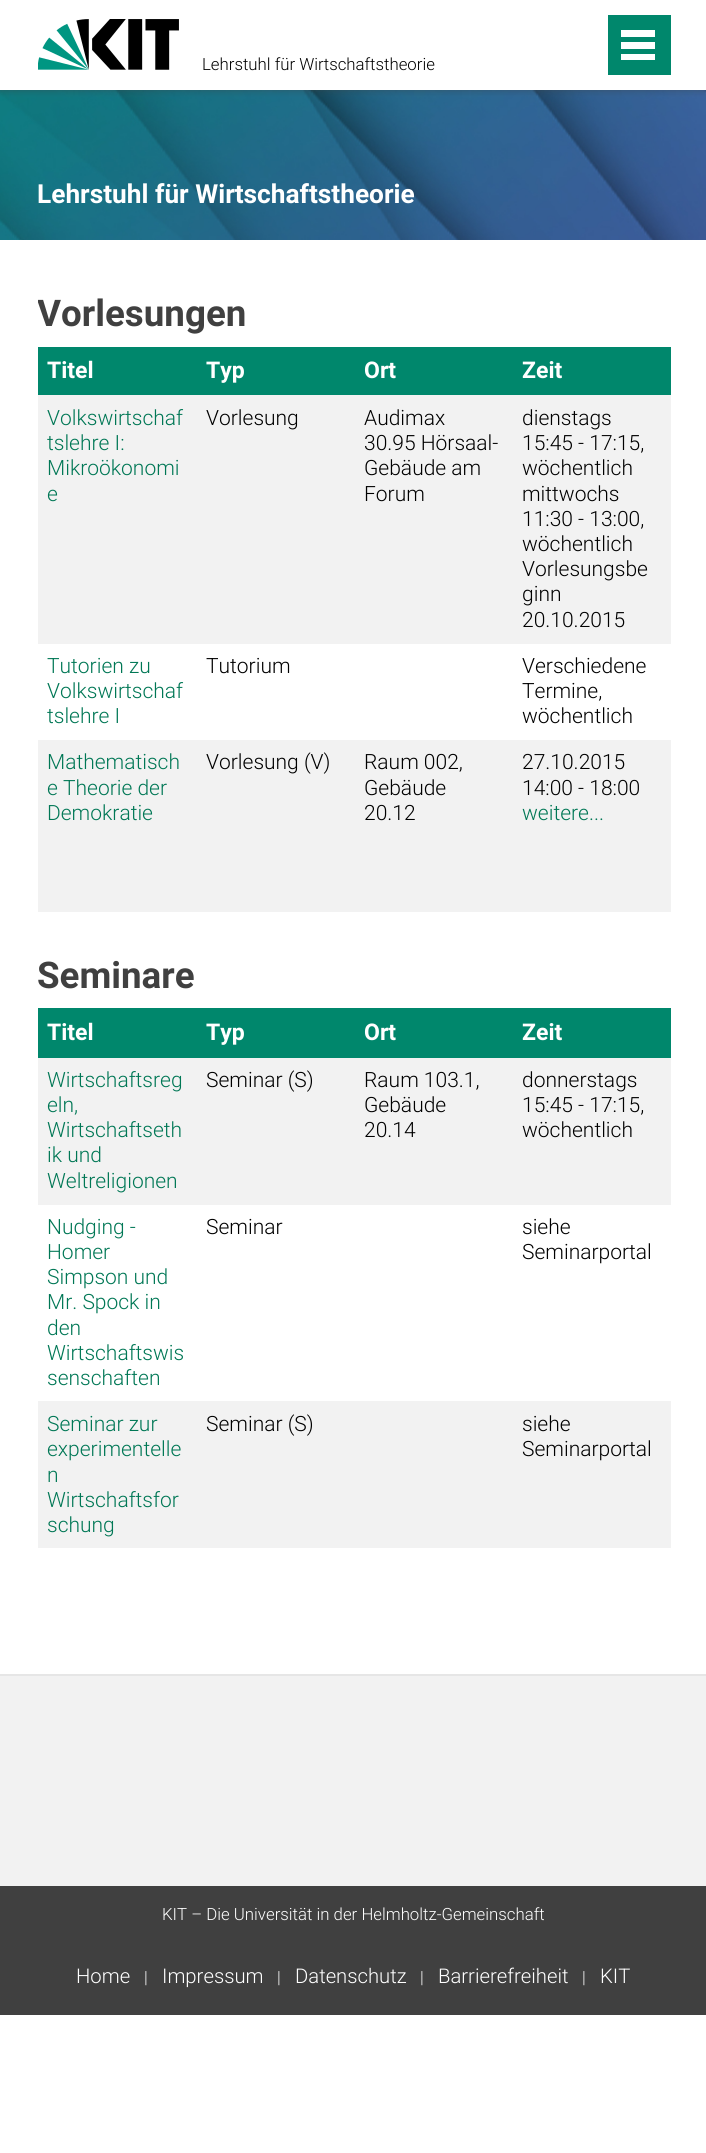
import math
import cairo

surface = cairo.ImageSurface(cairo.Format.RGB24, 706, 2153)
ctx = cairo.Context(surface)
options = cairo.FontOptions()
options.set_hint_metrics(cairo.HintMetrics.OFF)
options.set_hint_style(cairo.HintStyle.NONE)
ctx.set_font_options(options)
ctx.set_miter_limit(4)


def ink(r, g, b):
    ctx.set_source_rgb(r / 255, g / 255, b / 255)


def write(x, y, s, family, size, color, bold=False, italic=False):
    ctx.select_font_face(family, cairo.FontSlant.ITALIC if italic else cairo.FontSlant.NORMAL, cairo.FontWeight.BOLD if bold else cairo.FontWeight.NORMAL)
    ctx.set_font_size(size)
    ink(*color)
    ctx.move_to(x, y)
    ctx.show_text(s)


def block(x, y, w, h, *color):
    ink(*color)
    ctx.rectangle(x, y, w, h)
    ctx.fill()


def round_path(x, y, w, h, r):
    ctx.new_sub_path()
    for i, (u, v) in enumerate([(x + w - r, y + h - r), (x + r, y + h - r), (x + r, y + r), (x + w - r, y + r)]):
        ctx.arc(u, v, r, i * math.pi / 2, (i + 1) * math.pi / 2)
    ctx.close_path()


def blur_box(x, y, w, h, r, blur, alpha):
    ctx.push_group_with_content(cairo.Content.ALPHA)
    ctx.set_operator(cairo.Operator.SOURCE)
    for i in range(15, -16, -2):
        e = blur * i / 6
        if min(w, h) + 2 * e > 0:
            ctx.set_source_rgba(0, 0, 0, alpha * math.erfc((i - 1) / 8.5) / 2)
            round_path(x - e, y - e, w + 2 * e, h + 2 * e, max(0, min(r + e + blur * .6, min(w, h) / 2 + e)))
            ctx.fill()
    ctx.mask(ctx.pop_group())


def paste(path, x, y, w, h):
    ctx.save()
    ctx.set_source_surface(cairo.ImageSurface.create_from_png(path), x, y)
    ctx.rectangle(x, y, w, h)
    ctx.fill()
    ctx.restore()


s1 = dict(family="Roboto Light", size=16.8, color=(0, 0, 0))
s2 = dict(family="Roboto", size=26.25, color=(255, 255, 255), bold=True)
s3 = dict(family="Roboto", size=36.75, color=(64, 64, 64), bold=True)
s4 = dict(family="Roboto", size=23, color=(255, 255, 255), bold=True)
s5 = dict(family="Roboto Light", size=21, color=(0, 119, 85))
s6 = dict(family="Roboto Light", size=21, color=(0, 0, 0))
s7 = dict(family="Roboto Light", size=16.8, color=(255, 255, 255))
s8 = dict(family="Roboto Light", size=20.25, color=(255, 255, 255))

ink(255, 255, 255)
ctx.paint()
paste("pic2.png", 0, 90, 706, 150)
ctx.save()
ctx.rectangle(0, 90, 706, 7)
ctx.clip()
ink(64, 64, 64)
blur_box(0, 0, 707, 90, 0, 4, 0.5)
ctx.restore()
paste("pic1.png", 38, 19, 141, 51)
write(202, 70, "Lehrstuhl für Wirtschaftstheorie", **s1)
block(608, 15, 63, 60, 0, 135, 108)
block(621, 54, 34, 6, 255, 255, 255)
block(621, 42, 34, 7, 255, 255, 255)
block(621, 30, 34, 7, 255, 255, 255)
write(37, 203, "Lehrstuhl für Wirtschaftstheorie", **s2)
ctx.save()
ctx.rectangle(38, 282, 633, 630)
ctx.clip()
write(37, 326, "Vorlesungen", **s3)
ctx.restore()
block(38, 347, 633, 48, 0, 135, 108)
write(47, 378, "Titel", **s4)
write(206, 378, "Typ", **s4)
write(364, 378, "Ort", **s4)
write(522, 378, "Zeit", **s4)
block(38, 395, 633, 249, 242, 242, 242)
write(47, 425, "Volkswirtschaf", **s5)
write(47, 450, "tslehre I:", **s5)
write(47, 475, "Mikroökonomi", **s5)
write(47, 501, "e", **s5)
write(206, 425, "Vorlesung", **s6)
write(364, 425, "Audimax", **s6)
write(364, 450, "30.95 Hörsaal-", **s6)
write(364, 475, "Gebäude am", **s6)
write(364, 501, "Forum", **s6)
write(522, 425, "dienstags", **s6)
write(522, 450, "15:45 - 17:15,", **s6)
write(522, 475, "wöchentlich", **s6)
write(522, 501, "mittwochs", **s6)
write(522, 526, "11:30 - 13:00,", **s6)
write(522, 551, "wöchentlich", **s6)
write(522, 576, "Vorlesungsbe", **s6)
write(522, 601, "ginn", **s6)
write(522, 627, "20.10.2015", **s6)
write(47, 673, "Tutorien zu", **s5)
write(47, 698, "Volkswirtschaf", **s5)
write(47, 723, "tslehre I", **s5)
write(206, 673, "Tutorium", **s6)
write(522, 673, "Verschiedene", **s6)
write(522, 698, "Termine,", **s6)
write(522, 723, "wöchentlich", **s6)
block(38, 740, 633, 172, 242, 242, 242)
write(47, 769, "Mathematisch", **s5)
write(47, 795, "e Theorie der", **s5)
write(47, 820, "Demokratie", **s5)
write(206, 769, "Vorlesung (V)", **s6)
write(364, 769, "Raum 002,", **s6)
write(364, 795, "Gebäude", **s6)
write(364, 820, "20.12", **s6)
write(522, 769, "27.10.2015", **s6)
write(522, 795, "14:00 - 18:00", **s6)
write(522, 820, "weitere...", **s5)
write(37, 988, "Seminare", **s3)
block(38, 1008, 633, 50, 0, 135, 108)
write(47, 1040, "Titel", **s4)
write(206, 1040, "Typ", **s4)
write(364, 1040, "Ort", **s4)
write(522, 1040, "Zeit", **s4)
block(38, 1058, 633, 147, 242, 242, 242)
write(47, 1087, "Wirtschaftsreg", **s5)
write(47, 1112, "eln,", **s5)
write(47, 1137, "Wirtschaftseth", **s5)
write(47, 1162, "ik und", **s5)
write(47, 1188, "Weltreligionen", **s5)
write(206, 1087, "Seminar (S)", **s6)
write(364, 1087, "Raum 103.1,", **s6)
write(364, 1112, "Gebäude", **s6)
write(364, 1137, "20.14", **s6)
write(522, 1087, "donnerstags", **s6)
write(522, 1112, "15:45 - 17:15,", **s6)
write(522, 1137, "wöchentlich", **s6)
write(47, 1234, "Nudging -", **s5)
write(47, 1259, "Homer", **s5)
write(47, 1284, "Simpson und", **s5)
write(47, 1309, "Mr. Spock in", **s5)
write(47, 1335, "den", **s5)
write(47, 1360, "Wirtschaftswis", **s5)
write(47, 1385, "senschaften", **s5)
write(206, 1234, "Seminar", **s6)
write(522, 1234, "siehe", **s6)
write(522, 1259, "Seminarportal", **s6)
block(38, 1401, 633, 147, 242, 242, 242)
write(47, 1431, "Seminar zur", **s5)
write(47, 1456, "experimentelle", **s5)
write(47, 1482, "n", **s5)
write(47, 1507, "Wirtschaftsfor", **s5)
write(47, 1532, "schung", **s5)
write(206, 1431, "Seminar (S)", **s6)
write(522, 1431, "siehe", **s6)
write(522, 1456, "Seminarportal", **s6)
block(0, 1676, 706, 210, 242, 242, 242)
block(0, 1674, 706, 2, 230, 230, 230)
block(0, 1886, 706, 129, 64, 64, 64)
write(162, 1920, "KIT – Die Universität in der Helmholtz-Gemeinschaft", **s7)
write(76, 1983, "Home", **s8)
write(144, 1983, "|", **s7)
write(162, 1983, "Impressum", **s8)
write(277, 1983, "|", **s7)
write(295, 1983, "Datenschutz", **s8)
write(420, 1983, "|", **s7)
write(438, 1983, "Barrierefreiheit", **s8)
write(582, 1983, "|", **s7)
write(600, 1983, "KIT", **s8)
surface.write_to_png("screenshot.png")
